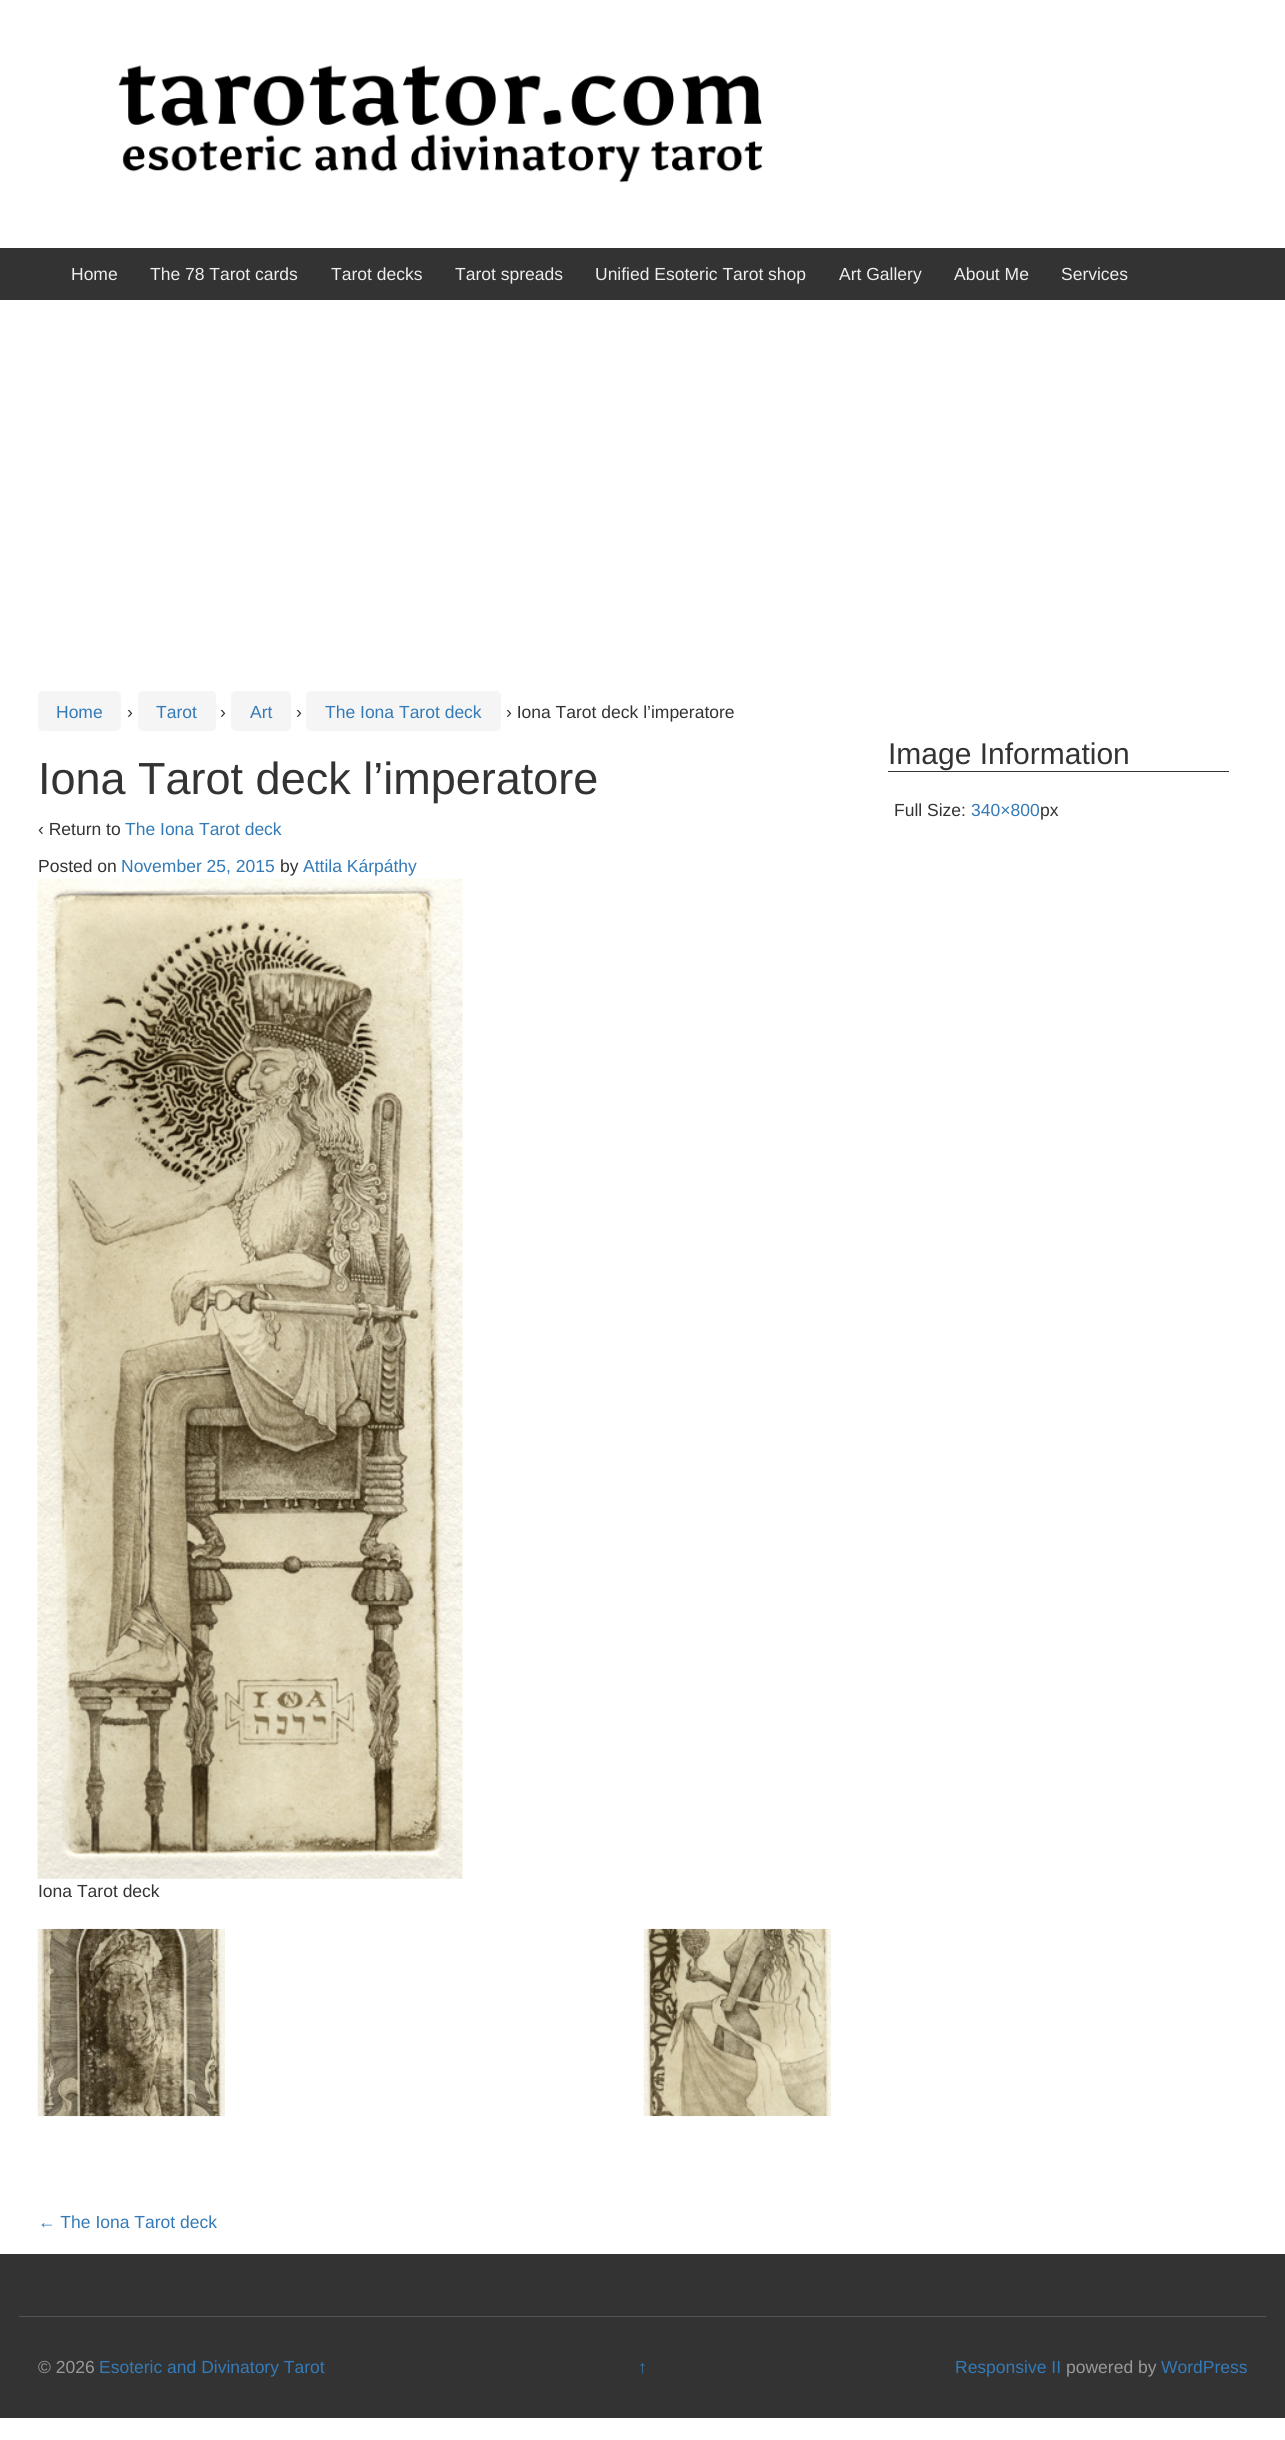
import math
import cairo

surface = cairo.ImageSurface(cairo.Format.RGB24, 1285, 2440)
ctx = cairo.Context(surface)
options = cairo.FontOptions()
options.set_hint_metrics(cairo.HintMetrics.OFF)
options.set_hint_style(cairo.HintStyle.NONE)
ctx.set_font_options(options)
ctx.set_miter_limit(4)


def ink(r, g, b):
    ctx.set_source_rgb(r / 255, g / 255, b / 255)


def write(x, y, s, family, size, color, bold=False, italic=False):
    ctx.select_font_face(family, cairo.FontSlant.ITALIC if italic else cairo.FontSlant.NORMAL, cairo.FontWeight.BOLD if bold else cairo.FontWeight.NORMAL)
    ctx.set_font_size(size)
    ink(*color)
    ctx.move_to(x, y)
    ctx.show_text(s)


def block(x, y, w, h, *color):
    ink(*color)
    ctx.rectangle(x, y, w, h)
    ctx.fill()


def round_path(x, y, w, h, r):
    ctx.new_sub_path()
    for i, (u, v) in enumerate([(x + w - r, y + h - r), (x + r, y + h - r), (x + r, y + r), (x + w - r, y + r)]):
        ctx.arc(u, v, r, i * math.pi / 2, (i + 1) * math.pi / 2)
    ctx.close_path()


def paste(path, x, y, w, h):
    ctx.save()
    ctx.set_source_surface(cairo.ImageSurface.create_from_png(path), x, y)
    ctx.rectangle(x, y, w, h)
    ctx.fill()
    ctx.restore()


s1 = dict(family="Liberation Sans", size=17.5, color=(238, 238, 238))
s2 = dict(family="Liberation Sans", size=17.5, color=(51, 122, 183))
s3 = dict(family="Liberation Sans", size=17.5, color=(51, 51, 51))
s4 = dict(family="Liberation Sans", size=45, color=(51, 51, 51))
s5 = dict(family="Liberation Sans", size=30, color=(51, 51, 51))
s6 = dict(family="Liberation Sans", size=17.5, color=(153, 153, 153))

ink(255, 255, 255)
ctx.paint()
paste("pic1.png", 118, 65, 645, 118)
block(0, 248, 1285, 52, 51, 51, 51)
write(71, 280, "Home", **s1)
write(150, 280, "The 78 Tarot cards", **s1)
write(331, 280, "Tarot decks", **s1)
write(455, 280, "Tarot spreads", **s1)
write(595, 280, "Unified Esoteric Tarot shop", **s1)
write(839, 280, "Art Gallery", **s1)
write(954, 280, "About Me", **s1)
write(1061, 280, "Services", **s1)
ink(245, 245, 245)
round_path(38, 691, 83, 40, 5)
ctx.fill()
write(56, 718, "Home", **s2)
write(127, 718, "›", **s3)
ink(245, 245, 245)
round_path(138, 691, 78, 40, 5)
ctx.fill()
write(156, 718, "Tarot", **s2)
write(220, 718, "›", **s3)
ink(245, 245, 245)
round_path(231, 691, 60, 40, 5)
ctx.fill()
write(250, 718, "Art", **s2)
write(296, 718, "›", **s3)
ink(245, 245, 245)
round_path(306, 691, 195, 40, 5)
ctx.fill()
write(325, 718, "The Iona Tarot deck", **s2)
write(506, 718, "› Iona Tarot deck l’imperatore", **s3)
write(38, 794, "Iona Tarot deck l’imperatore", **s4)
write(38, 835, "‹ Return to", **s3)
write(125, 835, "The Iona Tarot deck", **s2)
write(38, 872, "Posted on", **s3)
write(121, 872, "November 25, 2015", **s2)
write(280, 872, "by", **s3)
write(303, 872, "Attila Kárpáthy", **s2)
paste("pic2.png", 37, 878, 426, 1001)
write(38, 1897, "Iona Tarot deck", **s3)
paste("pic3.png", 37, 1928, 188, 189)
paste("pic4.png", 643, 1928, 188, 189)
write(38, 2228, "← The Iona Tarot deck", **s2)
block(888, 771, 341, 1, 51, 51, 51)
write(888, 764, "Image Information", **s5)
write(894, 816, "Full Size:", **s3)
write(971, 816, "340×800", **s2)
write(1040, 816, "px", **s3)
block(0, 2254, 1285, 164, 51, 51, 51)
block(19, 2316, 1247, 1, 85, 85, 85)
write(38, 2373, "© 2026", **s6)
write(99, 2373, "Esoteric and Divinatory Tarot", **s2)
write(638, 2373, "↑", **s2)
write(955, 2373, "Responsive II", **s2)
write(1066, 2373, "powered by", **s6)
write(1161, 2373, "WordPress", **s2)
surface.write_to_png("screenshot.png")
